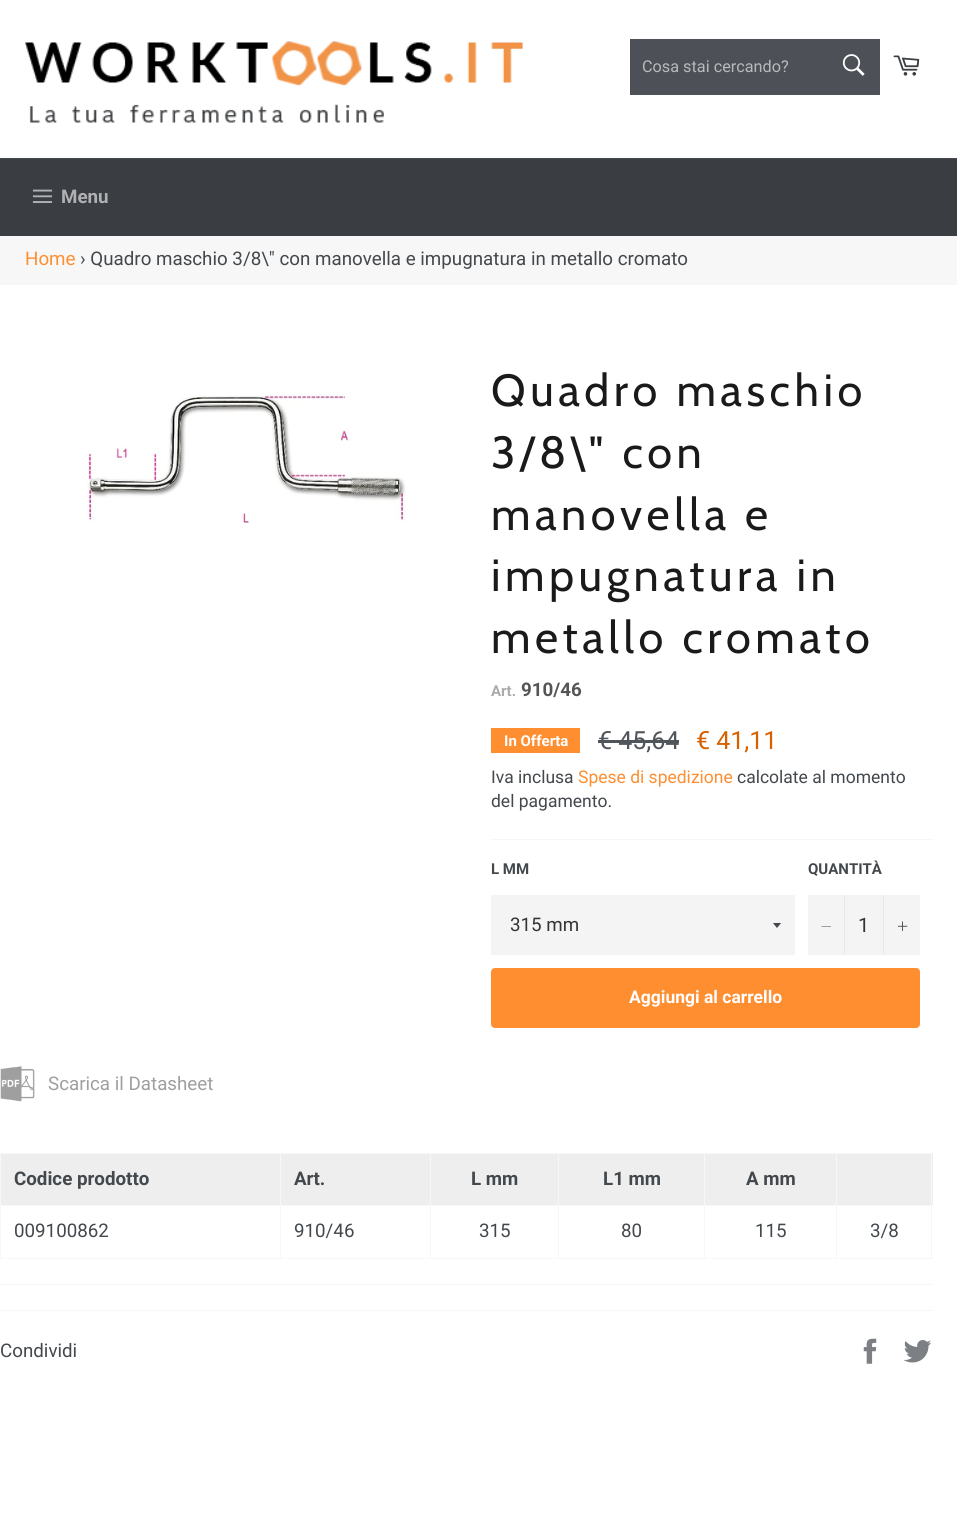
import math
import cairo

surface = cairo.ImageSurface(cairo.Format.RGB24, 957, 1515)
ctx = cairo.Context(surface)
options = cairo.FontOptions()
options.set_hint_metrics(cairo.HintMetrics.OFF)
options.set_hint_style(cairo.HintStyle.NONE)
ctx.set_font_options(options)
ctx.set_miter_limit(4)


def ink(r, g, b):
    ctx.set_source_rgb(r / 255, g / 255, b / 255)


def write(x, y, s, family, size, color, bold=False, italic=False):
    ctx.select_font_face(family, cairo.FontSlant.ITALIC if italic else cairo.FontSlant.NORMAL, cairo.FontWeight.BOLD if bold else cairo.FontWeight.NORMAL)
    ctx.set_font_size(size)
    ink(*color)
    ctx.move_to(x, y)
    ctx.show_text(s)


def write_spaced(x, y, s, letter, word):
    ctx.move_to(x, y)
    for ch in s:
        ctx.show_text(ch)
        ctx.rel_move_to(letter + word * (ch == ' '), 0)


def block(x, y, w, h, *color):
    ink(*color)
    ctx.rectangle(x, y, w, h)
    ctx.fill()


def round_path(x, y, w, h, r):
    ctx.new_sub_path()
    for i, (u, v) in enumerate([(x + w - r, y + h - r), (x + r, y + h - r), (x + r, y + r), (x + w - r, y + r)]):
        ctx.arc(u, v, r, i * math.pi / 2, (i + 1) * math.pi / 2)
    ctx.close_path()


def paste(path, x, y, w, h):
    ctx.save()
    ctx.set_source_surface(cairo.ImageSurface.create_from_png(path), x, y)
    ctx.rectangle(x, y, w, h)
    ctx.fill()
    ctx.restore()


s1 = dict(family="Roboto", size=16.25, color=(184, 185, 188))
s2 = dict(family="Roboto", size=18.75, color=(176, 177, 179), bold=True)
s3 = dict(family="Roboto", size=18.75, color=(255, 142, 49))
s4 = dict(family="Roboto", size=18.75, color=(67, 72, 77))
s5 = dict(family="Roboto", size=15, color=(170, 170, 170), bold=True)
s6 = dict(family="Roboto", size=18.75, color=(85, 85, 85), bold=True)
s7 = dict(family="Roboto", size=15, color=(255, 255, 255), bold=True)
s8 = dict(family="Roboto", size=25, color=(79, 85, 91))
s9 = dict(family="Roboto", size=25, color=(214, 97, 0))
s10 = dict(family="Roboto", size=17.5, color=(67, 72, 77))
s11 = dict(family="Roboto", size=17.5, color=(255, 142, 49))
s12 = dict(family="Roboto", size=15, color=(67, 72, 77), bold=True)
s13 = dict(family="Roboto", size=18.75, color=(51, 51, 51))
s14 = dict(family="Roboto", size=20, color=(51, 51, 51))
s15 = dict(family="Roboto", size=17.5, color=(255, 255, 255), bold=True)
s16 = dict(family="Roboto", size=18.75, color=(159, 159, 159))
s17 = dict(family="Roboto", size=18.75, color=(67, 72, 77), bold=True)

ink(247, 247, 247)
ctx.paint()
block(0, 0, 957, 158, 255, 255, 255)
paste("pic1.png", 25, 41, 498, 82)
block(630, 39, 250, 56, 77, 81, 87)
write(642, 72, "Cosa stai cercando?", **s1)
paste("pic2.png", 842, 54, 23, 22)
paste("pic3.png", 893, 55, 27, 21)
block(0, 159, 957, 77, 58, 61, 65)
block(0, 158, 957, 1, 70, 74, 78)
paste("pic4.png", 32, 189, 21, 14)
write(61, 203, "Menu", **s2)
write(25, 265, "Home", **s3)
write(80, 265, "› Quadro maschio 3/8\\\" con manovella e impugnatura in metallo cromato", **s4)
block(0, 285, 957, 1230, 255, 255, 255)
paste("pic5.png", 87, 393, 319, 130)
ctx.select_font_face("Cabin")
ctx.set_font_size(45)
ink(26, 26, 26)
write_spaced(491, 406, "Quadro maschio", 4.5, 0)
write_spaced(491, 468, "3/8\\\" con", 4.5, 0)
write_spaced(491, 530, "manovella e", 4.5, 0)
write_spaced(491, 591, "impugnatura in", 4.5, 0)
write_spaced(491, 653, "metallo cromato", 4.5, 0)
write(491, 696, "Art.", **s5)
write(521, 696, "910/46", **s6)
block(491, 728, 89, 25, 255, 142, 49)
write(504, 746, "In Offerta", **s7)
write(598, 749, "€ 45,64", **s8)
block(598, 740, 81, 3, 79, 85, 91)
write(696, 749, "€ 41,11", **s9)
write(491, 783, "Iva inclusa", **s10)
write(578, 783, "Spese di spedizione", **s11)
write(737, 783, "calcolate al momento", **s10)
write(491, 807, "del pagamento.", **s10)
block(491, 839, 442, 1, 247, 247, 247)
write(491, 874, "L MM", **s12)
block(491, 895, 304, 60, 244, 244, 244)
ctx.save()
ctx.rectangle(773, 923, 10, 6)
ctx.clip()
ink(67, 72, 77)
ctx.new_path()
ctx.move_to(772.5, 922.5)
ctx.line_to(777, 928)
ctx.line_to(781.5, 922.5)
ctx.close_path()
ctx.fill()
ctx.restore()
write(510, 931, "315 mm", **s13)
write(808, 874, "QUANTITÀ", **s12)
block(808, 895, 112, 60, 244, 244, 244)
block(844, 895, 1, 60, 231, 231, 231)
ink(67, 72, 77)
ctx.set_fill_rule(cairo.FillRule.EVEN_ODD)
ctx.new_path()
ctx.move_to(831, 926)
ctx.line_to(831, 926.5)
ctx.line_to(821.5, 926.5)
ctx.line_to(821.5, 926)
ctx.close_path()
ctx.fill()
write(858, 932, "1", **s14)
block(883, 895, 1, 60, 231, 231, 231)
paste("pic6.png", 898, 921, 10, 10)
ink(255, 142, 49)
round_path(491, 968, 429, 60, 4)
ctx.fill()
write(629, 1003, "Aggiungi al carrello", **s15)
paste("pic7.png", 0, 1066, 35, 36)
write(48, 1090, "Scarica il Datasheet", **s16)
block(1, 1154, 279, 51, 238, 238, 238)
block(836, 1153, 97, 1, 247, 247, 247)
block(836, 1205, 97, 1, 247, 247, 247)
block(931, 1205, 1, 54, 247, 247, 247)
block(836, 1258, 97, 1, 247, 247, 247)
block(836, 1205, 1, 54, 247, 247, 247)
block(704, 1205, 134, 1, 247, 247, 247)
block(836, 1153, 1, 53, 247, 247, 247)
block(704, 1153, 134, 1, 247, 247, 247)
block(704, 1258, 134, 1, 247, 247, 247)
block(704, 1205, 1, 54, 247, 247, 247)
block(558, 1205, 147, 1, 247, 247, 247)
block(704, 1153, 1, 53, 247, 247, 247)
block(558, 1153, 147, 1, 247, 247, 247)
block(558, 1258, 147, 1, 247, 247, 247)
block(558, 1205, 1, 54, 247, 247, 247)
block(430, 1205, 129, 1, 247, 247, 247)
block(558, 1153, 1, 53, 247, 247, 247)
block(430, 1153, 129, 1, 247, 247, 247)
block(430, 1258, 129, 1, 247, 247, 247)
block(430, 1205, 1, 54, 247, 247, 247)
block(280, 1205, 151, 1, 247, 247, 247)
block(430, 1153, 1, 53, 247, 247, 247)
block(280, 1153, 151, 1, 247, 247, 247)
block(280, 1258, 151, 1, 247, 247, 247)
block(280, 1205, 1, 54, 247, 247, 247)
block(0, 1205, 281, 1, 247, 247, 247)
block(280, 1153, 1, 53, 247, 247, 247)
block(0, 1153, 281, 1, 247, 247, 247)
block(0, 1258, 281, 1, 247, 247, 247)
block(0, 1205, 1, 54, 247, 247, 247)
block(0, 1153, 1, 53, 247, 247, 247)
write(14, 1185, "Codice prodotto", **s17)
block(281, 1154, 149, 51, 238, 238, 238)
write(294, 1185, "Art.", **s17)
block(431, 1154, 127, 51, 238, 238, 238)
write(471, 1185, "L mm", **s17)
block(559, 1154, 145, 51, 238, 238, 238)
write(603, 1185, "L1 mm", **s17)
block(705, 1154, 131, 51, 238, 238, 238)
write(746, 1185, "A mm", **s17)
block(837, 1154, 96, 51, 238, 238, 238)
block(931, 1153, 1, 53, 247, 247, 247)
write(14, 1237, "009100862", **s4)
write(294, 1237, "910/46", **s4)
write(479, 1237, "315", **s4)
write(621, 1237, "80", **s4)
write(755, 1237, "115", **s4)
write(870, 1237, "3/8", **s4)
block(0, 1284, 933, 1, 247, 247, 247)
block(0, 1310, 933, 1, 247, 247, 247)
write(0, 1357, "Condividi", **s4)
paste("pic8.png", 863, 1338, 14, 26)
paste("pic9.png", 904, 1340, 28, 23)
surface.write_to_png("screenshot.png")
